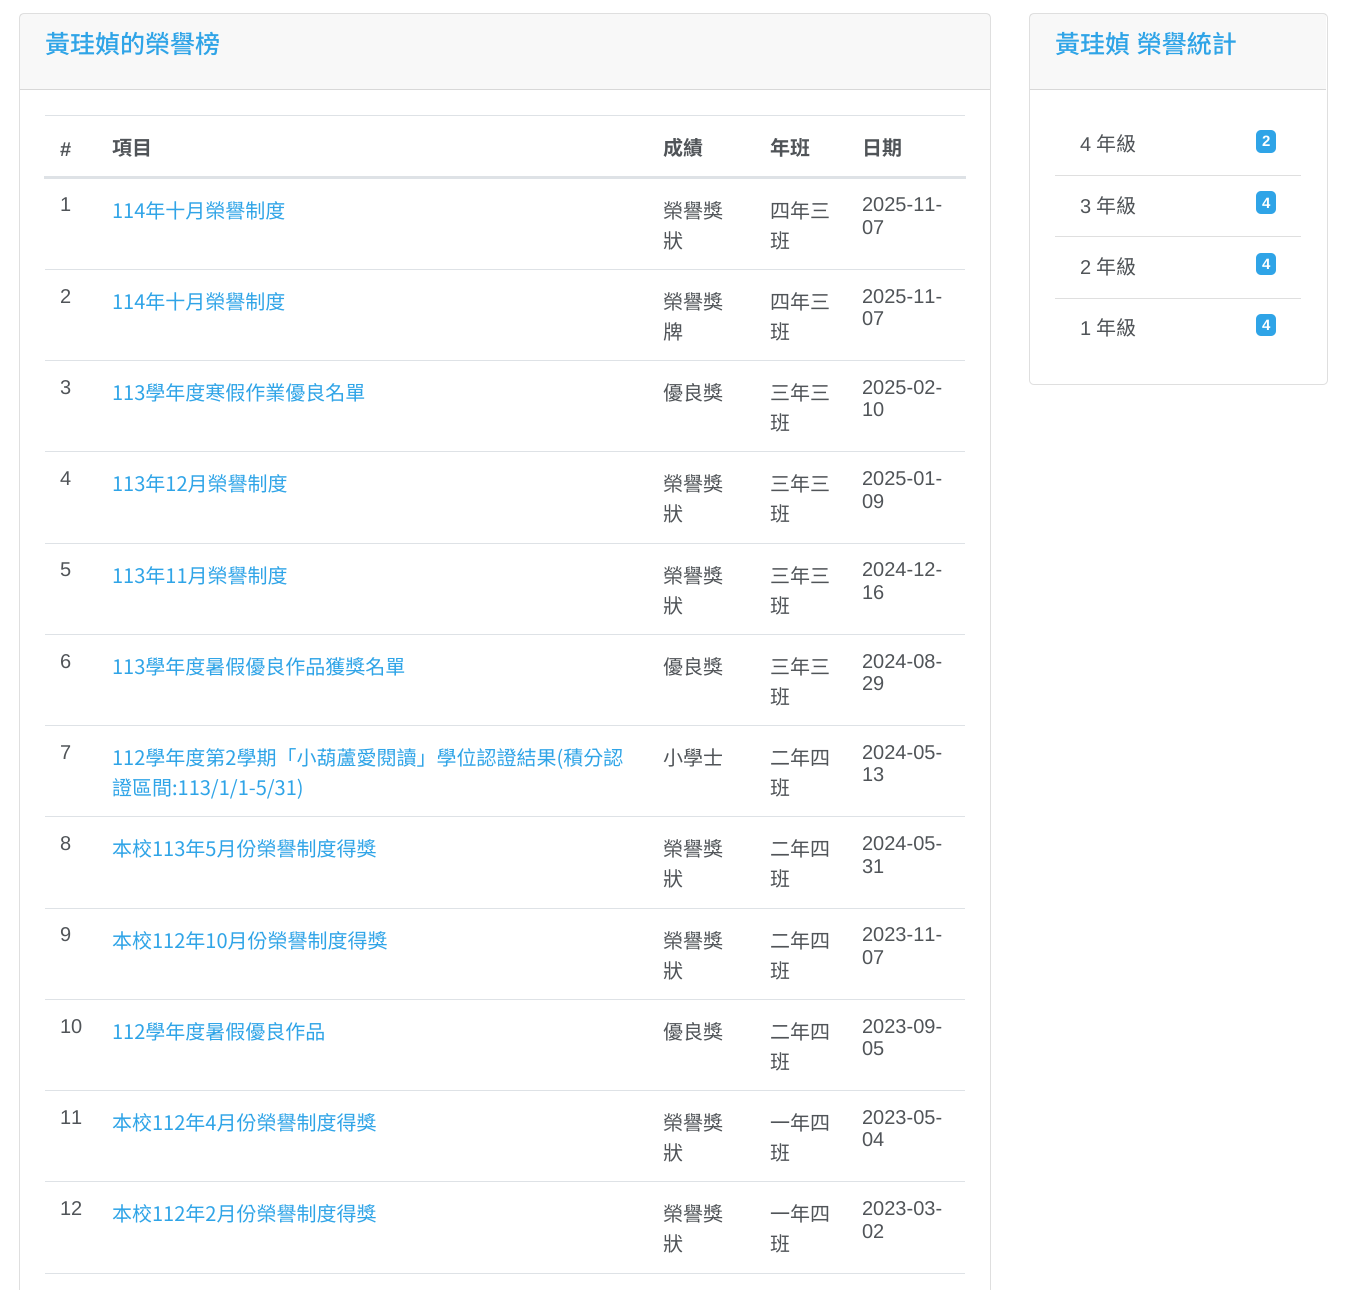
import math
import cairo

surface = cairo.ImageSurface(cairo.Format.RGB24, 1346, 1290)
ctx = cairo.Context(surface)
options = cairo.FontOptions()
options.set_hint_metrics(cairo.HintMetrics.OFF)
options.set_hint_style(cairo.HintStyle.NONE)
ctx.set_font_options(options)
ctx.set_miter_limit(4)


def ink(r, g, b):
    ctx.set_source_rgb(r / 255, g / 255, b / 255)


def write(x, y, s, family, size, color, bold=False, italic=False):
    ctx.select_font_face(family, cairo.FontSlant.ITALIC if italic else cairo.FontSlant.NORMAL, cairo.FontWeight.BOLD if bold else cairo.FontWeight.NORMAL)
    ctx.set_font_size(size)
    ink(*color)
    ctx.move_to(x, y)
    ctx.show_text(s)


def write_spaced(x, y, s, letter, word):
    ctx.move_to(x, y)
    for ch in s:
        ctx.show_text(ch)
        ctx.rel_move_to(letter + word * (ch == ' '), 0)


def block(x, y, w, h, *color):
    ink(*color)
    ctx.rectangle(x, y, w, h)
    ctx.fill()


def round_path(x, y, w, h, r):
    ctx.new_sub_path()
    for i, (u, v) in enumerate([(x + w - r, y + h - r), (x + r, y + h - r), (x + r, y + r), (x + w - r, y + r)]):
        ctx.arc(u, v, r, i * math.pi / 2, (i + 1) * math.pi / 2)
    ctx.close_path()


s1 = dict(family="Noto Sans TC Medium", size=25, color=(47, 164, 231))
s2 = dict(family="Liberation Sans", size=20, color=(80, 84, 88), bold=True)
s3 = dict(family="Noto Sans TC", size=20, color=(80, 84, 88), bold=True)
s4 = dict(family="Liberation Sans", size=20, color=(80, 84, 88))
s5 = dict(family="Noto Sans TC", size=20, color=(47, 164, 231))
s6 = dict(family="Noto Sans TC", size=20, color=(80, 84, 88))
s7 = dict(family="Liberation Sans", size=15, color=(255, 255, 255), bold=True)

ink(255, 255, 255)
ctx.paint()
round_path(19.5, 13.5, 971, 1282, 4.5)
ink(223, 223, 223)
ctx.set_line_width(1)
ctx.stroke()
ctx.set_source_rgba(0, 0, 0, 0.03)
ctx.rectangle(20, 14, 970, 75)
ctx.fill()
block(20, 89, 970, 1, 216, 216, 216)
write(45, 53, "黃珪媜的榮譽榜", **s1)
write(60, 156, "#", **s2)
write(112, 155, "項目", **s3)
write(663, 155, "成績", **s3)
write(770, 155, "年班", **s3)
block(45, 115, 920, 1, 222, 226, 230)
block(44, 176, 922, 3, 222, 226, 230)
write(862, 155, "日期", **s3)
write(60, 211, "1", **s4)
write(112, 218, "114年十月榮譽制度", **s5)
write(663, 218, "榮譽獎", **s6)
write(663, 248, "狀", **s6)
write(770, 218, "四年三", **s6)
write(770, 248, "班", **s6)
write(862, 211, "2025-11-", **s4)
write(862, 234, "07", **s4)
write(60, 303, "2", **s4)
write(112, 309, "114年十月榮譽制度", **s5)
write(663, 309, "榮譽獎", **s6)
write(663, 339, "牌", **s6)
write(770, 309, "四年三", **s6)
write(770, 339, "班", **s6)
block(45, 269, 920, 1, 222, 226, 230)
write(862, 303, "2025-11-", **s4)
write(862, 325, "07", **s4)
write(60, 394, "3", **s4)
write(112, 400, "113學年度寒假作業優良名單", **s5)
write(663, 400, "優良獎", **s6)
write(770, 400, "三年三", **s6)
write(770, 430, "班", **s6)
block(45, 360, 920, 1, 222, 226, 230)
write(862, 394, "2025-02-", **s4)
write(862, 416, "10", **s4)
write(60, 485, "4", **s4)
write(112, 491, "113年12月榮譽制度", **s5)
write(663, 491, "榮譽獎", **s6)
write(663, 521, "狀", **s6)
write(770, 491, "三年三", **s6)
write(770, 521, "班", **s6)
block(45, 451, 920, 1, 222, 226, 230)
write(862, 485, "2025-01-", **s4)
write(862, 508, "09", **s4)
write(60, 576, "5", **s4)
write(112, 583, "113年11月榮譽制度", **s5)
write(663, 583, "榮譽獎", **s6)
write(663, 613, "狀", **s6)
write(770, 583, "三年三", **s6)
write(770, 613, "班", **s6)
block(45, 543, 920, 1, 222, 226, 230)
write(862, 576, "2024-12-", **s4)
write(862, 599, "16", **s4)
write(60, 668, "6", **s4)
write(112, 674, "113學年度暑假優良作品獲獎名單", **s5)
write(663, 674, "優良獎", **s6)
write(770, 674, "三年三", **s6)
write(770, 704, "班", **s6)
block(45, 634, 920, 1, 222, 226, 230)
write(862, 668, "2024-08-", **s4)
write(862, 690, "29", **s4)
write(60, 759, "7", **s4)
write(112, 765, "112學年度第2學期「小葫蘆愛閱讀」學位認證結果(積分認", **s5)
write(112, 795, "證區間:113/1/1-5/31)", **s5)
write(663, 765, "小學士", **s6)
write(770, 765, "二年四", **s6)
write(770, 795, "班", **s6)
block(45, 725, 920, 1, 222, 226, 230)
write(862, 759, "2024-05-", **s4)
write(862, 781, "13", **s4)
write(60, 850, "8", **s4)
write(112, 856, "本校113年5月份榮譽制度得獎", **s5)
write(663, 856, "榮譽獎", **s6)
write(663, 886, "狀", **s6)
write(770, 856, "二年四", **s6)
write(770, 886, "班", **s6)
block(45, 816, 920, 1, 222, 226, 230)
write(862, 850, "2024-05-", **s4)
write(862, 873, "31", **s4)
write(60, 941, "9", **s4)
write(112, 948, "本校112年10月份榮譽制度得獎", **s5)
write(663, 948, "榮譽獎", **s6)
write(663, 978, "狀", **s6)
write(770, 948, "二年四", **s6)
write(770, 978, "班", **s6)
block(45, 908, 920, 1, 222, 226, 230)
write(862, 941, "2023-11-", **s4)
write(862, 964, "07", **s4)
write(60, 1033, "10", **s4)
write(112, 1039, "112學年度暑假優良作品", **s5)
write(663, 1039, "優良獎", **s6)
write(770, 1039, "二年四", **s6)
write(770, 1069, "班", **s6)
block(45, 999, 920, 1, 222, 226, 230)
write(862, 1033, "2023-09-", **s4)
write(862, 1055, "05", **s4)
write(60, 1124, "11", **s4)
write(112, 1130, "本校112年4月份榮譽制度得獎", **s5)
write(663, 1130, "榮譽獎", **s6)
write(663, 1160, "狀", **s6)
write(770, 1130, "一年四", **s6)
write(770, 1160, "班", **s6)
block(45, 1090, 920, 1, 222, 226, 230)
write(862, 1124, "2023-05-", **s4)
write(862, 1146, "04", **s4)
write(60, 1215, "12", **s4)
write(112, 1221, "本校112年2月份榮譽制度得獎", **s5)
write(663, 1221, "榮譽獎", **s6)
write(663, 1251, "狀", **s6)
write(770, 1221, "一年四", **s6)
write(770, 1251, "班", **s6)
block(45, 1181, 920, 1, 222, 226, 230)
write(862, 1215, "2023-03-", **s4)
write(862, 1238, "02", **s4)
block(45, 1273, 920, 1, 222, 226, 230)
round_path(1029.5, 13.5, 298, 371, 4.5)
ink(223, 223, 223)
ctx.stroke()
ctx.set_source_rgba(0, 0, 0, 0.03)
ctx.rectangle(1030, 14, 296, 75)
ctx.fill()
block(1030, 89, 296, 1, 216, 216, 216)
ctx.select_font_face("Noto Sans TC Medium")
ctx.set_font_size(25)
ink(47, 164, 231)
write_spaced(1055, 53, "黃珪媜 榮譽統計", 0, 1)
write(1080, 151, "4", **s4)
write(1096, 151, "年級", **s6)
ink(47, 164, 231)
round_path(1256, 130, 20, 23, 5)
ctx.fill()
write(1262, 146, "2", **s7)
block(1055, 175, 246, 1, 223, 223, 223)
write(1080, 213, "3", **s4)
write(1096, 213, "年級", **s6)
ink(47, 164, 231)
round_path(1256, 191, 20, 23, 5)
ctx.fill()
write(1262, 208, "4", **s7)
block(1055, 236, 246, 1, 223, 223, 223)
write(1080, 274, "2", **s4)
write(1096, 274, "年級", **s6)
ink(47, 164, 231)
round_path(1256, 253, 20, 22, 5)
ctx.fill()
write(1262, 269, "4", **s7)
block(1055, 298, 246, 1, 223, 223, 223)
write(1080, 335, "1", **s4)
write(1096, 335, "年級", **s6)
ink(47, 164, 231)
round_path(1256, 314, 20, 22, 5)
ctx.fill()
write(1262, 330, "4", **s7)
surface.write_to_png("screenshot.png")
